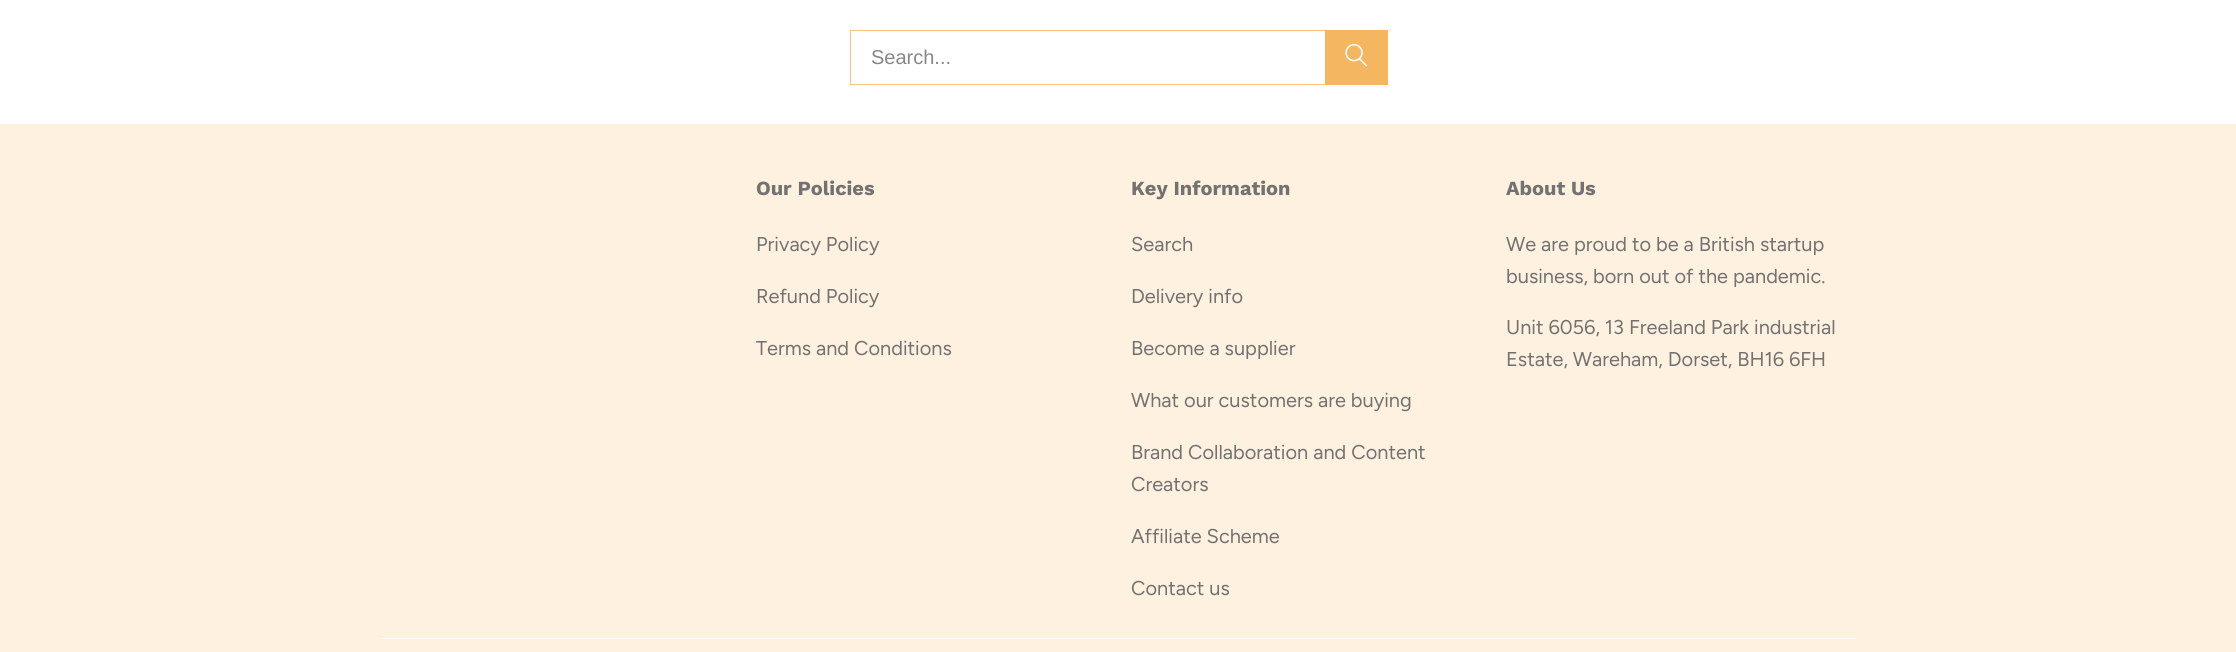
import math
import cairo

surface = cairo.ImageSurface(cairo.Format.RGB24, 2236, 652)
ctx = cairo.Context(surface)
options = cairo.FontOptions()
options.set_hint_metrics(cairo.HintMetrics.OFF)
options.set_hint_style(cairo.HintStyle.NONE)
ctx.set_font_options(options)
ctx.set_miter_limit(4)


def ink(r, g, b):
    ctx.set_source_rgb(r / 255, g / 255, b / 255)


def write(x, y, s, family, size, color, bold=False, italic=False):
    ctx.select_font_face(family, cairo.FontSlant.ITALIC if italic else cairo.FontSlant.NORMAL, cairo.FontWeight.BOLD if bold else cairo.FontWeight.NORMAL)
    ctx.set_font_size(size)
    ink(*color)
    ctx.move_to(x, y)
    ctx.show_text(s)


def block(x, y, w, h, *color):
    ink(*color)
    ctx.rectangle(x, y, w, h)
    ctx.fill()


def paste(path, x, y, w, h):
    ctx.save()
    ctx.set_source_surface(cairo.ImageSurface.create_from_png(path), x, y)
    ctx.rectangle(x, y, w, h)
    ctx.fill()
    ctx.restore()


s1 = dict(family="Liberation Sans", size=20, color=(136, 136, 136))
s2 = dict(family="Work Sans", size=20, color=(114, 114, 114), bold=True)
s3 = dict(family="Figtree", size=20, color=(114, 114, 114))

ink(255, 255, 255)
ctx.paint()
ctx.rectangle(850.5, 30.5, 537, 54)
ink(252, 197, 124)
ctx.set_line_width(1)
ctx.stroke()
write(871, 64, "Search...", **s1)
block(1325, 30, 63, 55, 245, 182, 97)
paste("pic1.png", 1345, 43, 23, 24)
block(0, 124, 2236, 528, 255, 241, 223)
write(756, 195, "Our Policies", **s2)
write(756, 251, "Privacy Policy", **s3)
write(756, 303, "Refund Policy", **s3)
write(756, 355, "Terms and Conditions", **s3)
write(1131, 195, "Key Information", **s2)
write(1131, 251, "Search", **s3)
write(1131, 303, "Delivery info", **s3)
write(1131, 355, "Become a supplier", **s3)
write(1131, 407, "What our customers are buying", **s3)
write(1131, 459, "Brand Collaboration and Content", **s3)
write(1131, 491, "Creators", **s3)
write(1131, 543, "Affiliate Scheme", **s3)
write(1131, 595, "Contact us", **s3)
write(1506, 195, "About Us", **s2)
write(1506, 251, "We are proud to be a British startup", **s3)
write(1506, 283, "business, born out of the pandemic.", **s3)
write(1506, 334, "Unit 6056, 13 Freeland Park industrial", **s3)
write(1506, 366, "Estate, Wareham, Dorset, BH16 6FH", **s3)
block(381, 638, 1475, 1, 255, 255, 255)
surface.write_to_png("screenshot.png")
